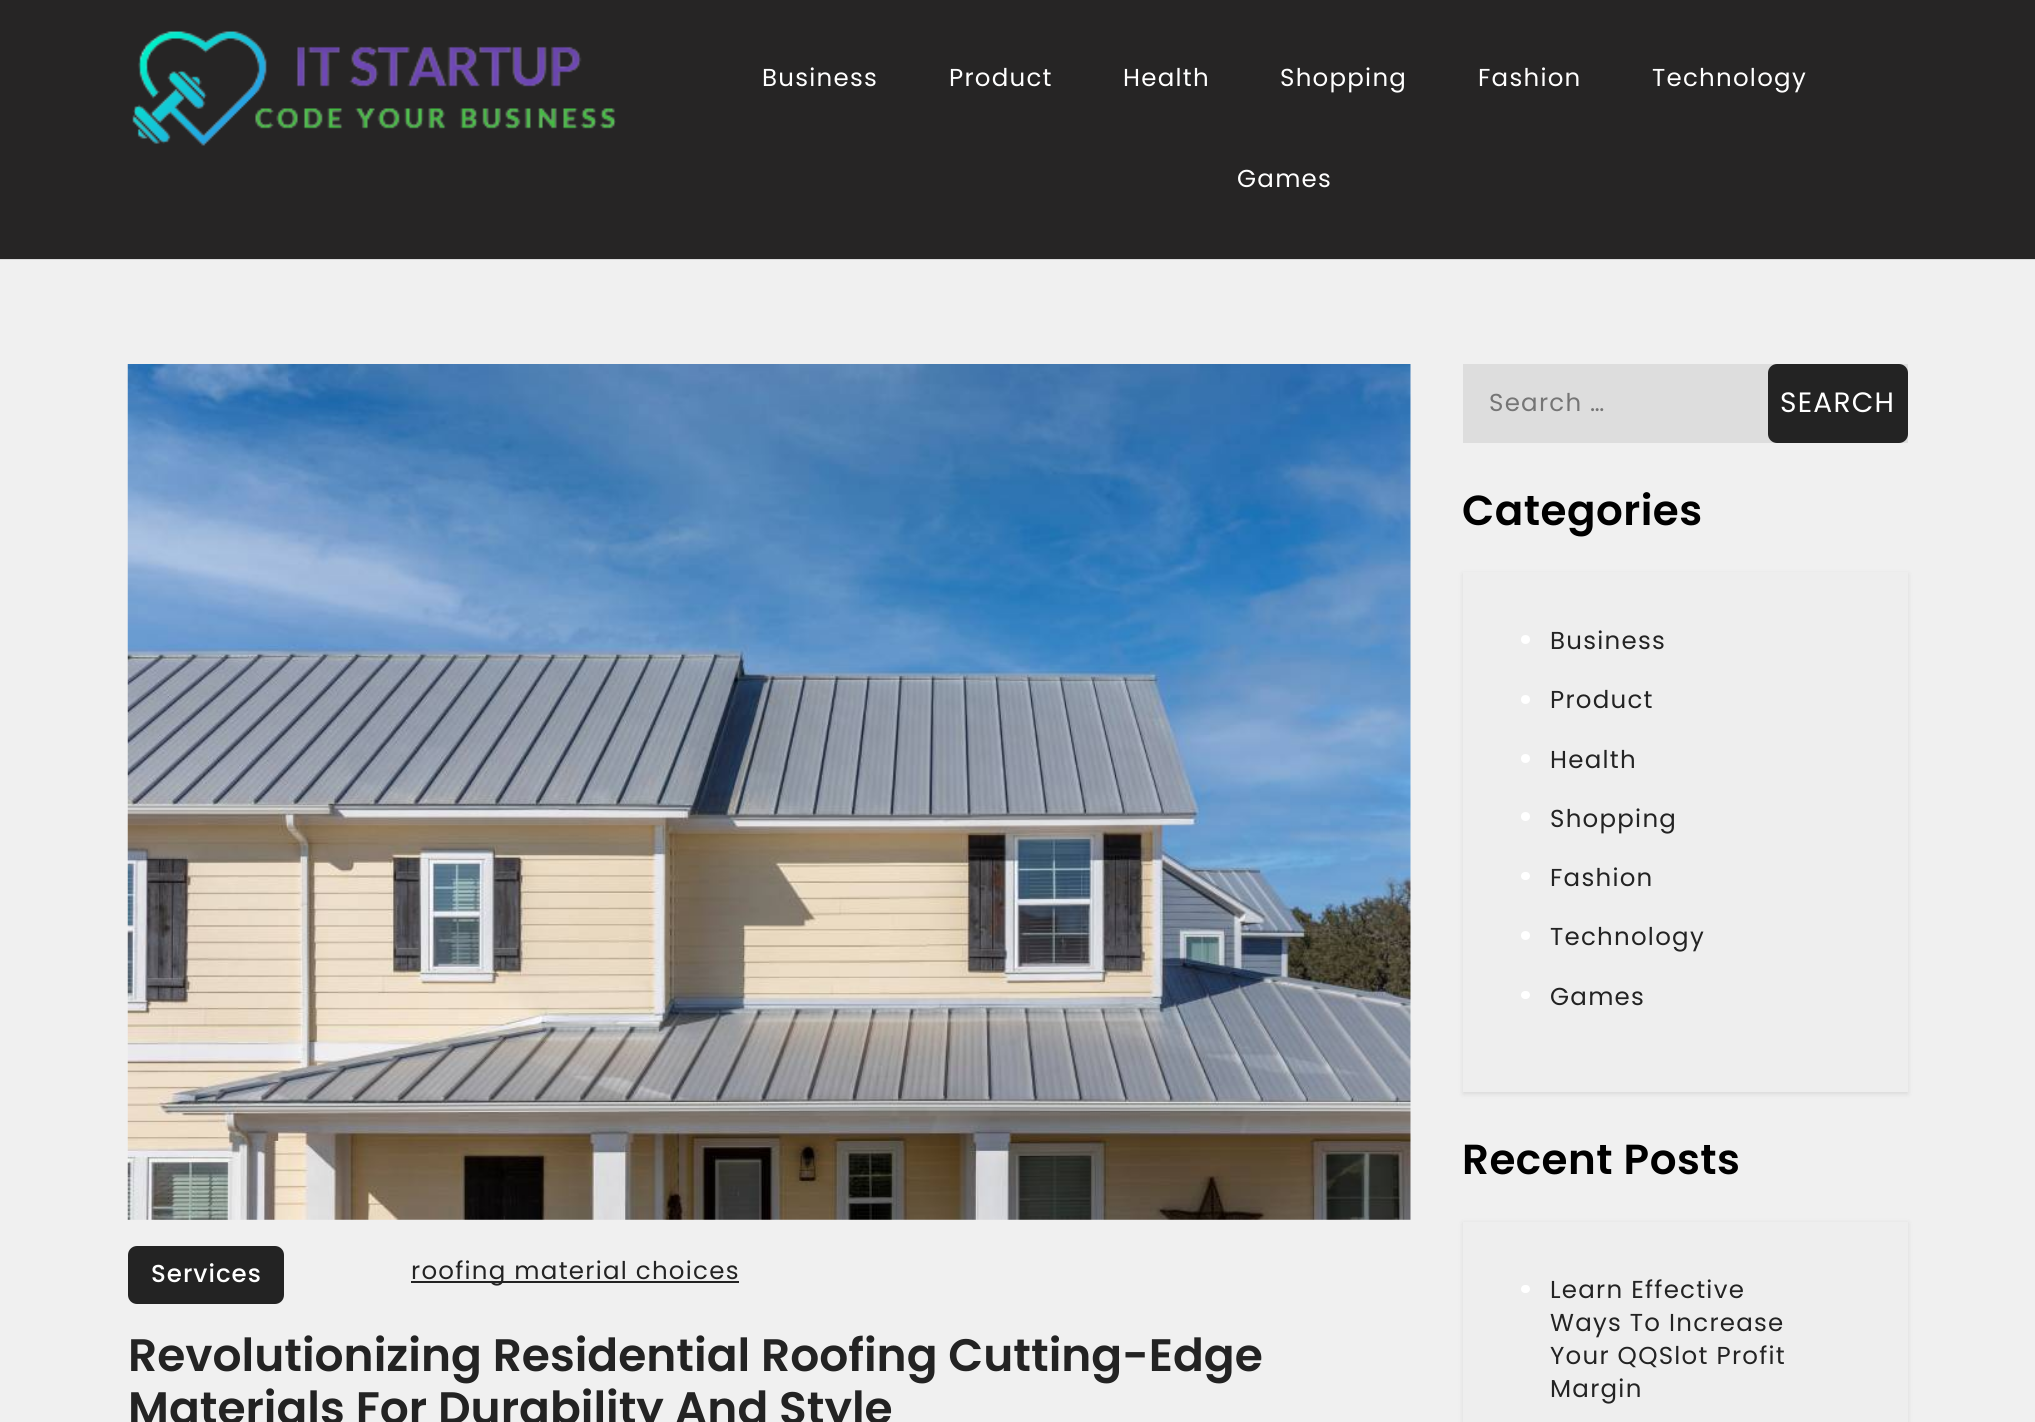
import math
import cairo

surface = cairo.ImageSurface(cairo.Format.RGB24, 2035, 1422)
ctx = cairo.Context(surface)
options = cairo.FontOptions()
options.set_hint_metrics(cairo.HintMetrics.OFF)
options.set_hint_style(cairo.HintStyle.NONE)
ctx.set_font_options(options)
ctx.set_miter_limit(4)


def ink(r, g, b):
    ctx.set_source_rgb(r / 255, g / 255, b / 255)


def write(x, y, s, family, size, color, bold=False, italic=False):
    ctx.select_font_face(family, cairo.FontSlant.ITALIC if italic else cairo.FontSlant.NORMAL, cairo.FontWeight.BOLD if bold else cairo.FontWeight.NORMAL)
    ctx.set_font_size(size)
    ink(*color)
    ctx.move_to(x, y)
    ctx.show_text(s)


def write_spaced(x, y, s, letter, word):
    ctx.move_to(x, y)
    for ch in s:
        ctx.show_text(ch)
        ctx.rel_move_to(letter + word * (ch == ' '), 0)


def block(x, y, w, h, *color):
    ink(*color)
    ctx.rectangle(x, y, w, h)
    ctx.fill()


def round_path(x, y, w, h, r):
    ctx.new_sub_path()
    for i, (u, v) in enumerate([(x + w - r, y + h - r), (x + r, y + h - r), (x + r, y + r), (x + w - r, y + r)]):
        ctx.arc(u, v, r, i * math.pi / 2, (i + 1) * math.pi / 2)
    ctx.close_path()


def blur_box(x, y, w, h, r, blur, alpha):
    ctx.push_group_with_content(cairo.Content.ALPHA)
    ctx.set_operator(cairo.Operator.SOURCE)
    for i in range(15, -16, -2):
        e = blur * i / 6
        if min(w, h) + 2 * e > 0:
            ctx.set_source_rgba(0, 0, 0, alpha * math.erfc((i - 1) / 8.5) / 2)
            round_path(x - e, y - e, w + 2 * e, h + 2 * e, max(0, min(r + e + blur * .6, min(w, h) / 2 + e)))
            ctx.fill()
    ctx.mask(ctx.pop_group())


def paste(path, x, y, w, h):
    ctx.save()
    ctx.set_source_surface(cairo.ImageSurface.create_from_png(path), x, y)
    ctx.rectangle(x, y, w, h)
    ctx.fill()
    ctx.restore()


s1 = dict(family="Poppins SemiBold", size=45.5, color=(35, 35, 35))

ink(240, 240, 240)
ctx.paint()
block(0, 259, 2035, 1, 219, 219, 219)
block(0, 0, 2035, 259, 38, 37, 37)
paste("pic1.png", 132, 31, 484, 115)
ctx.select_font_face("Poppins")
ctx.set_font_size(24.5)
ink(255, 255, 255)
write_spaced(762, 86, "Business", 1.25, 0)
write_spaced(949, 86, "Product", 1.25, 0)
write_spaced(1123, 86, "Health", 1.25, 0)
write_spaced(1280, 86, "Shopping", 1.25, 0)
write_spaced(1478, 86, "Fashion", 1.25, 0)
write_spaced(1652, 86, "Technology", 1.25, 0)
write_spaced(1237, 187, "Games", 1.25, 0)
paste("pic2.png", 127, 364, 1284, 856)
ink(35, 35, 35)
round_path(128, 1246, 156, 58, 9)
ctx.fill()
ctx.select_font_face("Poppins Medium")
ink(255, 255, 255)
write_spaced(151, 1282, "Services", 1, 0)
block(411, 1281, 328, 2, 35, 35, 35)
ctx.select_font_face("Poppins")
write_spaced(411, 1279, "roofing material choices", 1.25, 0)
write(128, 1371, "Revolutionizing Residential Roofing Cutting-Edge", **s1)
write(128, 1424, "Materials For Durability And Style", **s1)
block(1463, 364, 445, 79, 221, 221, 221)
ctx.select_font_face("Poppins")
ctx.set_font_size(24.5)
ink(117, 117, 117)
write_spaced(1489, 411, "Search …", 1.25, 0)
ink(35, 35, 35)
round_path(1768, 364, 140, 79, 9)
ctx.fill()
ctx.set_font_size(28)
ink(255, 255, 255)
write_spaced(1780, 412, "SEARCH", 1.25, 0)
ctx.select_font_face("Poppins SemiBold")
ctx.set_font_size(42)
ink(0, 0, 0)
write_spaced(1462, 525, "Categories", 0.5, 0)
ink(0, 0, 0)
blur_box(1463, 574, 445, 520, 0, 2.5, 0.1)
block(1463, 572, 445, 520, 238, 238, 238)
ink(255, 255, 255)
ctx.arc(1525.5, 639.5, 4.5, 0, 2 * math.pi)
ctx.fill()
ctx.select_font_face("Poppins")
ctx.set_font_size(24.5)
ink(35, 35, 35)
write_spaced(1550, 649, "Business", 1.25, 0)
ink(255, 255, 255)
ctx.new_path()
ctx.arc(1525.5, 699.5, 4.5, 0, 2 * math.pi)
ctx.fill()
ink(35, 35, 35)
write_spaced(1550, 708, "Product", 1.25, 0)
ink(255, 255, 255)
ctx.new_path()
ctx.arc(1525.5, 758.5, 4.5, 0, 2 * math.pi)
ctx.fill()
ink(35, 35, 35)
write_spaced(1550, 768, "Health", 1.25, 0)
ink(255, 255, 255)
ctx.new_path()
ctx.arc(1525.5, 816.5, 4.5, 0, 2 * math.pi)
ctx.fill()
ink(35, 35, 35)
write_spaced(1550, 827, "Shopping", 1.25, 0)
ink(255, 255, 255)
round_path(1521, 872, 9, 8, 4)
ctx.fill()
ink(35, 35, 35)
write_spaced(1550, 886, "Fashion", 1.25, 0)
ink(255, 255, 255)
ctx.new_path()
ctx.arc(1525.5, 935.5, 4.5, 0, 2 * math.pi)
ctx.fill()
ink(35, 35, 35)
write_spaced(1550, 945, "Technology", 1.25, 0)
ink(255, 255, 255)
round_path(1521, 991, 9, 8, 4)
ctx.fill()
ink(35, 35, 35)
write_spaced(1550, 1005, "Games", 1.25, 0)
ctx.select_font_face("Poppins SemiBold")
ctx.set_font_size(42)
ink(0, 0, 0)
write_spaced(1462, 1174, "Recent Posts", 0.5, 0)
ink(0, 0, 0)
blur_box(1463, 1223, 445, 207, 0, 2.5, 0.1)
block(1463, 1222, 445, 200, 238, 238, 238)
ink(255, 255, 255)
round_path(1521, 1285, 9, 8, 4)
ctx.fill()
ctx.select_font_face("Poppins")
ctx.set_font_size(24.5)
ink(35, 35, 35)
write_spaced(1550, 1298, "Learn Effective", 1.25, 0)
write_spaced(1550, 1331, "Ways To Increase", 1.25, 0)
write_spaced(1550, 1364, "Your QQSlot Profit", 1.25, 0)
write_spaced(1550, 1397, "Margin", 1.25, 0)
surface.write_to_png("screenshot.png")
